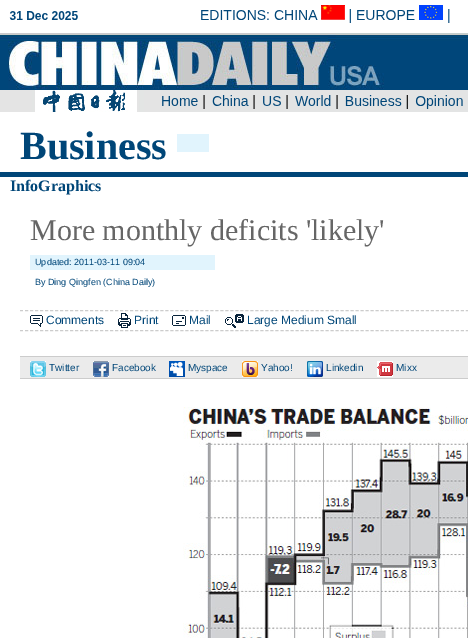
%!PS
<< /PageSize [468 638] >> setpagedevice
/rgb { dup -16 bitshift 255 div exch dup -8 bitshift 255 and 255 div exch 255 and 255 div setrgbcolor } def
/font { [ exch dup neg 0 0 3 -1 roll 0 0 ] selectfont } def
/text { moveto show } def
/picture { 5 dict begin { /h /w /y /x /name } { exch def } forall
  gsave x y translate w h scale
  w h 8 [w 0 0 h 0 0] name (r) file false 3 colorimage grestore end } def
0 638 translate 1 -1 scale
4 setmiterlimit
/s1 { /LiberationSerif-Bold 40 font 16#004678 rgb } def
/s2 { /LiberationSerif-Bold 16 font 16#004678 rgb } def
/s3 { /LiberationSerif-Regular 30 font 16#666666 rgb } def
/s4 { /LiberationSans-Regular 9 font 16#004678 rgb } def
/s5 { /LiberationSans-Regular 12 font 16#004678 rgb } def
/s6 { /LiberationSans-Regular 10 font 16#004678 rgb } def
16#FFFFFF rgb
0 0 468 638 rectfill
(pic1.raw) 0 0 468 112 picture
s1
(Business) 20 159 text
16#E1F4FD rgb
177 134 32 18 rectfill
16#004678 rgb
0 172 468 5 rectfill
s2
(InfoGraphics) 10 191 text
s3
(More monthly deficits 'likely') 30 240 text
16#E1F4FD rgb
30 255 185 15 rectfill
s4
(Updated: 2011-03-11 09:04) 35 265 text
(By Ding Qingfen \(China Daily\)) 35 285 text
16#CCCCCC rgb
[3 2.01] 0 setdash
20 310.5 moveto 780 310.5 lineto stroke
20 330.5 moveto 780 330.5 lineto stroke
(pic2.raw) 30 315 13 12 picture
s5
(Comments) 46 324 text
(pic3.raw) 118 313 13 15 picture
(Print) 134 324 text
(pic4.raw) 172 315 14 11 picture
(Mail) 189 324 text
(pic5.raw) 225 314 19 14 picture
(Large Medium Small) 247 324 text
16#EBEBEB rgb
20 357 448 21 rectfill
16#CCCCCC rgb
20 356 448 1 rectfill
20 378 448 1 rectfill
(pic6.raw) 30 361 16 16 picture
s6
(Twitter) 49 371 text
(pic7.raw) 93 361 16 16 picture
(Facebook) 112 371 text
(pic8.raw) 169 361 16 16 picture
(Myspace) 188 371 text
(pic9.raw) 242 361 16 16 picture
(Yahoo!) 261 371 text
(pic10.raw) 307 361 16 16 picture
(Linkedin) 326 371 text
(pic11.raw) 377 361 16 16 picture
(Mixx) 396 371 text
(pic12.raw) 183 407 285 231 picture
showpage
